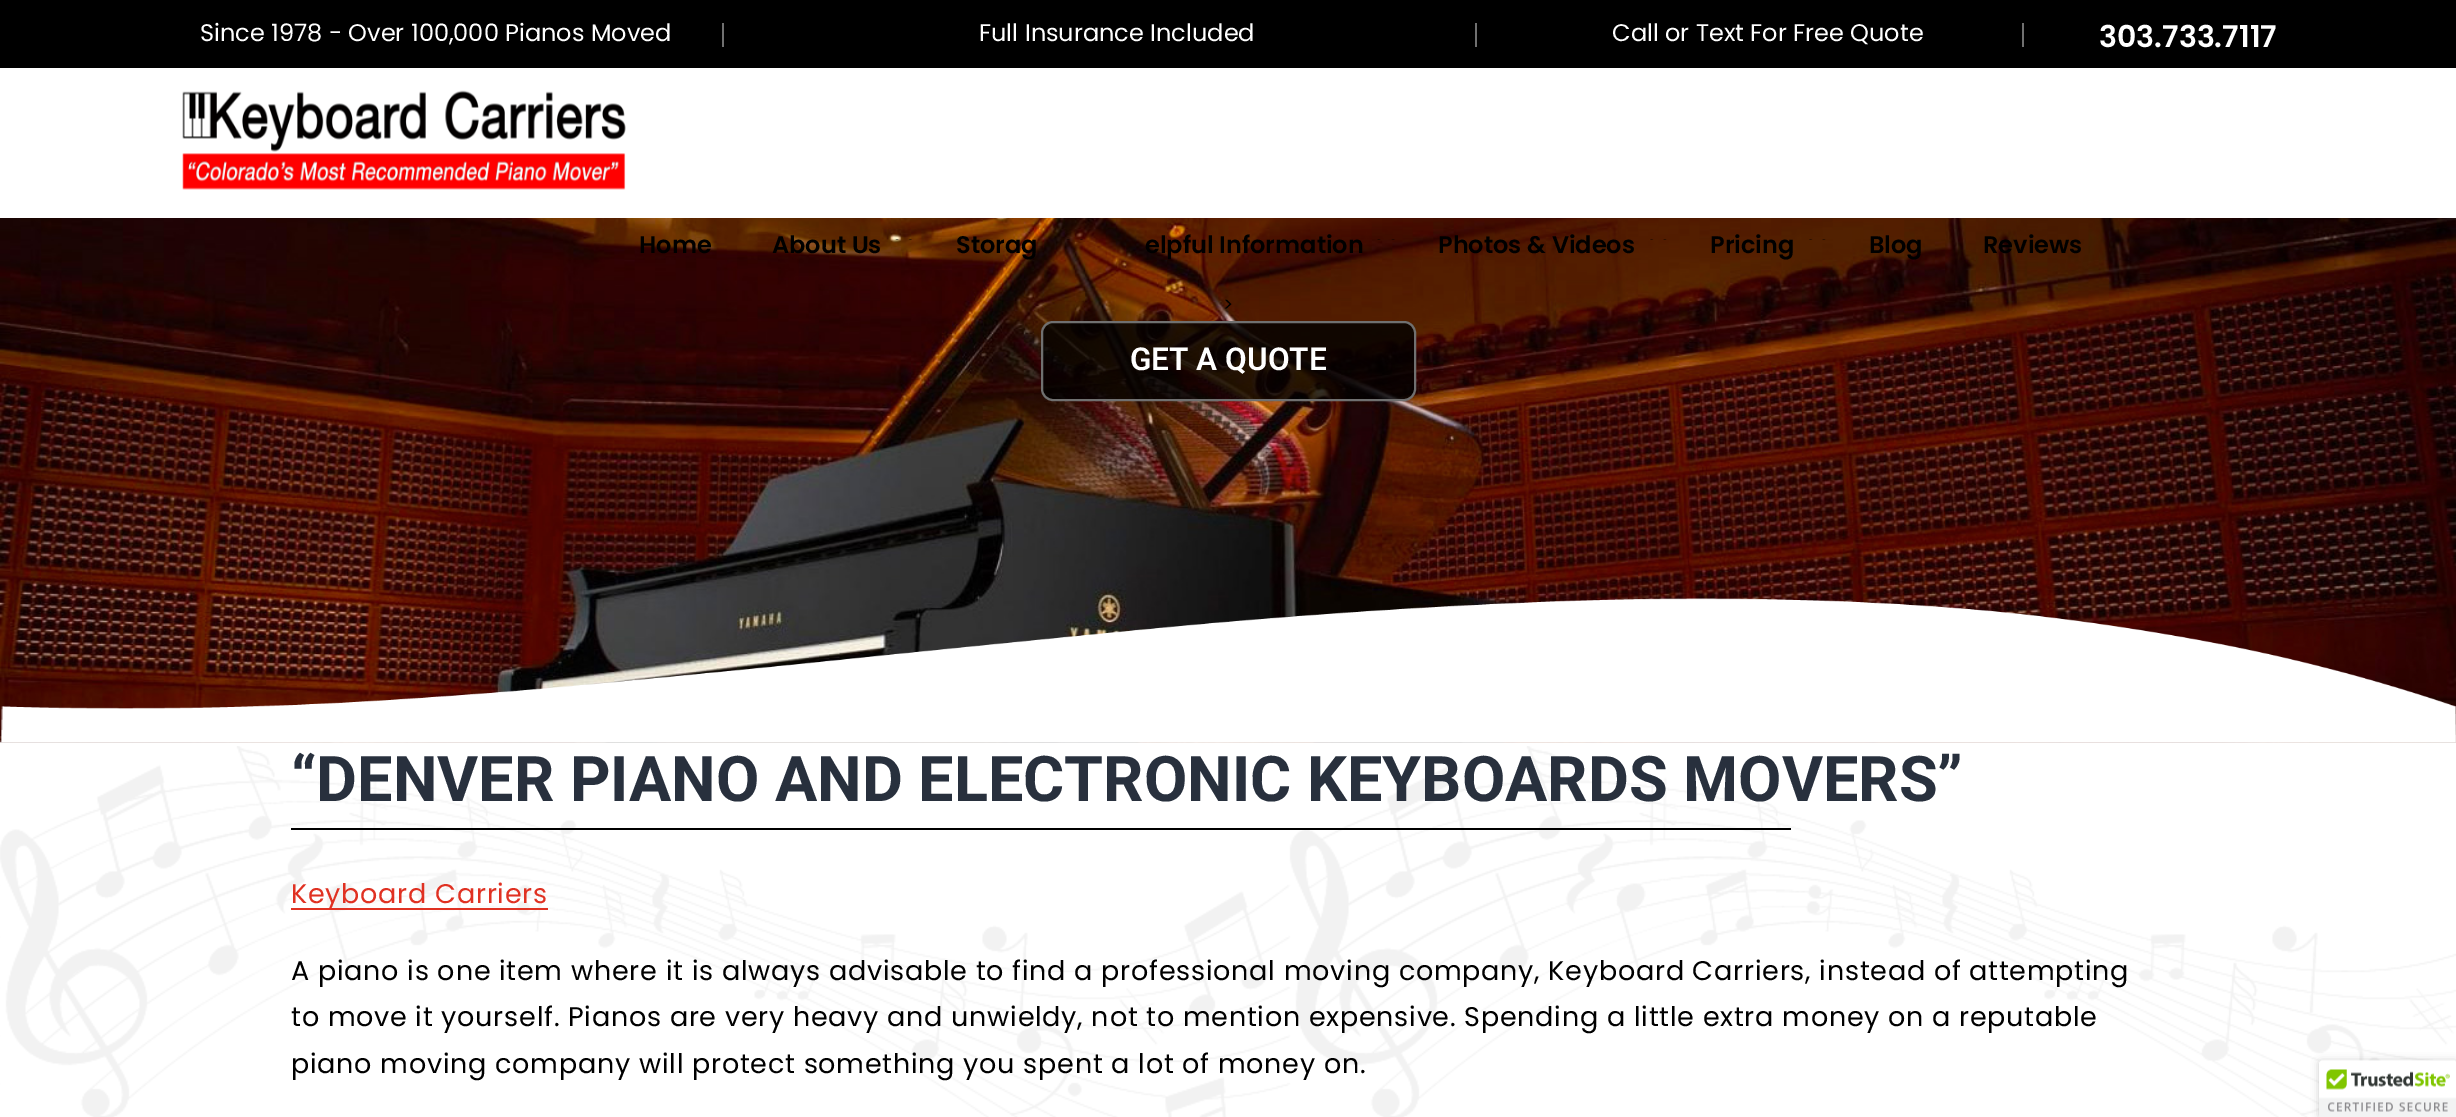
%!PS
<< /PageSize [2456 1117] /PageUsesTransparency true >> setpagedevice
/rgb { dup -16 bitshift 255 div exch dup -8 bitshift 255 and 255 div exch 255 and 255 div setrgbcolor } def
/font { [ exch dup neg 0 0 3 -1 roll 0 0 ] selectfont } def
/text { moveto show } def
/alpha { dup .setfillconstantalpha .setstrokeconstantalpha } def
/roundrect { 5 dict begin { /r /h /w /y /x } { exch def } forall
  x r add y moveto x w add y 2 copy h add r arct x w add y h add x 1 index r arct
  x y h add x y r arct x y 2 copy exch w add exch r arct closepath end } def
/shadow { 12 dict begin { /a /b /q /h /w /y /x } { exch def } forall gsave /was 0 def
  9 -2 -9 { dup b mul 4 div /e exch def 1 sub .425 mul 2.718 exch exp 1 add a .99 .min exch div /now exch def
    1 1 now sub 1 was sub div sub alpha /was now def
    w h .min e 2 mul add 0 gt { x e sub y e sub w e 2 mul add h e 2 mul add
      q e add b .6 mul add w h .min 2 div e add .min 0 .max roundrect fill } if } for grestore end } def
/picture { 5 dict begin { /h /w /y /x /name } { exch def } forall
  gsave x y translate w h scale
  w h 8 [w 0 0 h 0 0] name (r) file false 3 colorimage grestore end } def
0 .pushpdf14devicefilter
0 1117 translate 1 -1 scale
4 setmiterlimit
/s1 { /Poppins-Regular 24 font 16#FFFFFF rgb } def
/s2 { /Poppins-SemiBold 30 font 16#FFFFFF rgb } def
/s3 { /Poppins-SemiBold 24 font 16#000000 rgb } def
/s4 { /Poppins-Regular 19 font 16#000000 rgb } def
/s5 { /Roboto-SemiBold 31.5 font 16#FFFFFF rgb } def
/s6 { /Roboto-Bold 63 font 16#28303D rgb } def
16#FFFFFF rgb
0 0 2456 1117 rectfill
16#000000 rgb
0 0 2456 68 rectfill
16#707070 rgb
722 23 2 24 rectfill
s1
(Since 1978 - Over 100,000 Pianos Moved) 200 41 text
16#707070 rgb
1475 23 2 24 rectfill
s1
(Full Insurance Included) 979 41 text
16#707070 rgb
2022 23 2 24 rectfill
s1
(Call or Text For Free Quote) 1612 41 text
s2
(303.733.7117) 2099 47 text
(pic1.raw) 182 90 444 100 picture
(pic7.raw) 0 218 2456 525 picture
s3
(Home) 639 253 text
(About Us) 772 253 text
(pic2.raw) 895 239 17 1 picture
(Storag) 956 253 text
(pic3.raw) 1066 239 17 1 picture
(elpful Information) 1145 253 text
(pic4.raw) 1377 239 18 1 picture
(Photos & Videos) 1438 253 text
(pic5.raw) 1650 239 17 1 picture
(Pricing) 1710 253 text
(pic6.raw) 1809 239 17 1 picture
(Blog) 1869 253 text
(Reviews) 1983 253 text
s4
(>) 1223 311 text
0.8 alpha
1042 322 373 78 11 roundrect fill
1 alpha
16#707070 rgb
2 setlinewidth
1042 322 373 78 11 roundrect stroke
s5
(GET A QUOTE) 1130 370 text
(pic8.raw) 0 598 2456 145 picture
(pic9.raw) 0 746 2456 371 picture
s6
(“DENVER PIANO AND ELECTRONIC KEYBOARDS MOVERS”) 291 801 text
16#000000 rgb
291 828 1500 2 rectfill
16#E03122 rgb
291 908 257 2 rectfill
/Poppins-Regular 27 font
291 903 moveto 0.75 0 (Keyboard Carriers) ashow
16#000000 rgb
291 980 moveto 0.75 0 (A piano is one item where it is always advisable to find a professional moving company, Keyboard Carriers, instead of attempting) ashow
291 1026 moveto 0.75 0 (to move it yourself. Pianos are very heavy and unwieldy, not to mention expensive. Spending a little extra money on a reputable) ashow
291 1073 moveto 0.75 0 (piano moving company will protect something you spent a lot of money on.) ashow
2319 1061 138 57 3 4 0.2 shadow
(pic10.raw) 2319 1060 137 57 picture
.poppdf14devicefilter showpage
